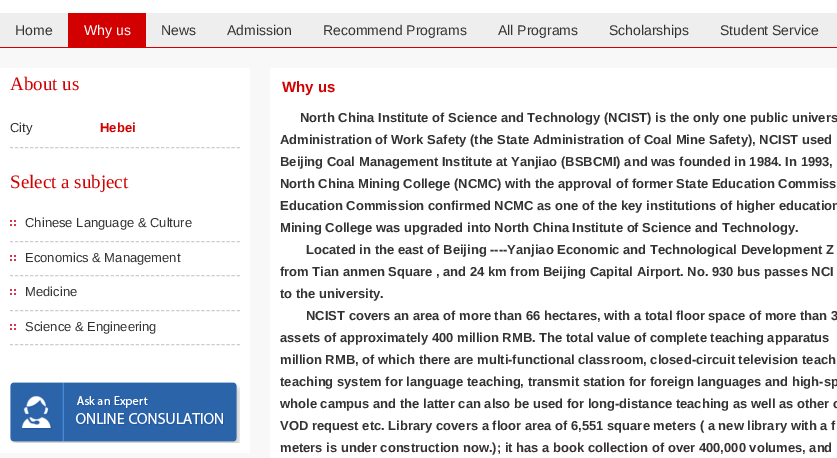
%!PS
<< /PageSize [837 458] >> setpagedevice
/rgb { dup -16 bitshift 255 div exch dup -8 bitshift 255 and 255 div exch 255 and 255 div setrgbcolor } def
/font { [ exch dup neg 0 0 3 -1 roll 0 0 ] selectfont } def
/text { moveto show } def
/picture { 5 dict begin { /h /w /y /x /name } { exch def } forall
  gsave x y translate w h scale
  w h 8 [w 0 0 h 0 0] name (r) file false 3 colorimage grestore end } def
0 458 translate 1 -1 scale
4 setmiterlimit
/s1 { /LiberationSans-Regular 14 font 16#333333 rgb } def
/s2 { /LiberationSans-Regular 14 font 16#FFFFFF rgb } def
/s3 { /LiberationSerif-Regular 19 font 16#D20000 rgb } def
/s4 { /LiberationSans-Regular 13 font 16#333333 rgb } def
/s5 { /LiberationSans-Bold 13 font 16#D20000 rgb } def
/s6 { /LiberationSans-Bold 15 font 16#D20000 rgb } def
/s7 { /LiberationSans-Bold 13 font 16#333333 rgb } def
16#F8F8F8 rgb
0 0 837 458 rectfill
16#FFFFFF rgb
0 0 837 13 rectfill
16#D20000 rgb
0 47 837 1 rectfill
16#EEEEEE rgb
0 13 837 34 rectfill
s1
(Home) 15 35 text
16#D20000 rgb
68 13 78 34 rectfill
s2
(Why us) 84 35 text
s1
(News) 161 35 text
(Admission) 227 35 text
(Recommend Programs) 323 35 text
(All Programs) 498 35 text
(Scholarships) 609 35 text
(Student Service) 720 35 text
16#FFFFFF rgb
0 68 250 385 rectfill
s3
(About us) 10 90 text
16#CCCCCC rgb
[3 2.04] 0 setdash
10 147.5 moveto 240 147.5 lineto stroke
s4
(City) 10 132 text
s5
(Hebei) 100 132 text
s3
(Select a subject) 10 188 text
(pic1.raw) 10 220 6 6 picture
16#CCCCCC rgb
10 241.5 moveto 240 241.5 lineto stroke
s4
(Chinese Language & Culture) 25 227 text
(pic1.raw) 10 255 6 6 picture
16#CCCCCC rgb
10 275.5 moveto 240 275.5 lineto stroke
s4
(Economics & Management) 25 262 text
(pic1.raw) 10 289 6 6 picture
16#CCCCCC rgb
10 310.5 moveto 240 310.5 lineto stroke
s4
(Medicine) 25 296 text
(pic1.raw) 10 324 6 6 picture
16#CCCCCC rgb
10 344.5 moveto 240 344.5 lineto stroke
s4
(Science & Engineering) 25 331 text
(pic2.raw) 10 382 230 61 picture
16#FFFFFF rgb
270 68 567 390 rectfill
s6
(Why us) 282 92 text
s7
(North China Institute of Science and Technology \(NCIST\) is the only one public univers) 300 122 text
(Administration of Work Safety \(the State Administration of Coal Mine Safety\), NCIST used) 280 144 text
(Beijing Coal Management Institute at Yanjiao \(BSBCMI\) and was founded in 1984. In 1993,) 280 166 text
(North China Mining College \(NCMC\) with the approval of former State Education Commiss) 280 188 text
(Education Commission confirmed NCMC as one of the key institutions of higher education) 280 210 text
(Mining College was upgraded into North China Institute of Science and Technology.) 280 232 text
(Located in the east of Beijing ----Yanjiao Economic and Technological Development Z) 306 254 text
(from Tian anmen Square , and 24 km from Beijing Capital Airport. No. 930 bus passes NCI) 280 276 text
(to the university.) 280 298 text
(NCIST covers an area of more than 66 hectares, with a total floor space of more than 3) 306 320 text
(assets of approximately 400 million RMB. The total value of complete teaching apparatus) 280 342 text
(million RMB, of which there are multi-functional classroom, closed-circuit television teach) 280 364 text
(teaching system for language teaching, transmit station for foreign languages and high-sp) 280 386 text
(whole campus and the latter can also be used for long-distance teaching as well as other c) 280 408 text
(VOD request etc. Library covers a floor area of 6,551 square meters \( a new library with a f) 280 430 text
(meters is under construction now.\); it has a book collection of over 400,000 volumes, and) 280 452 text
showpage
